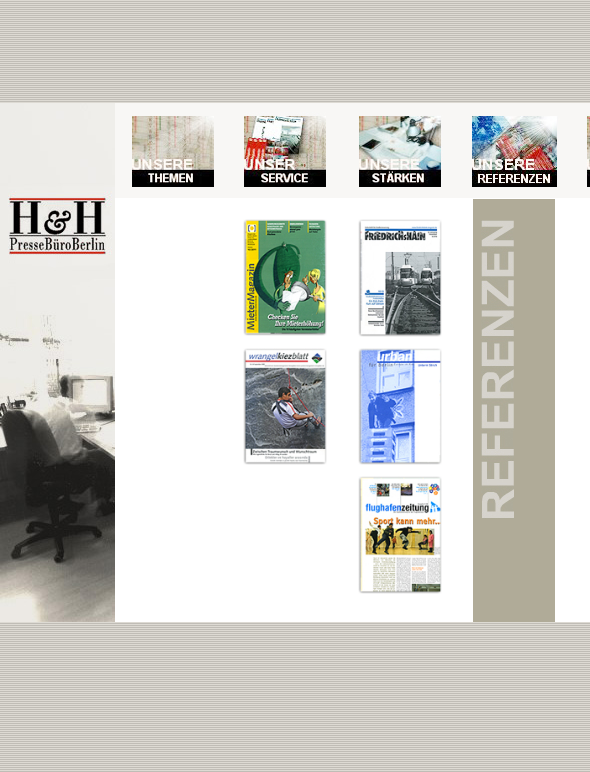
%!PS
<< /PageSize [590 772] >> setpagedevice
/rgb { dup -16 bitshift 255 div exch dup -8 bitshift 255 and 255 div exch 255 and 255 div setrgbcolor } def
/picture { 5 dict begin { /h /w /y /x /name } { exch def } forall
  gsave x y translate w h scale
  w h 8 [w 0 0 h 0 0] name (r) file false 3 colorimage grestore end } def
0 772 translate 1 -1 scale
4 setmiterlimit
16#FFFFFF rgb
0 0 590 772 rectfill
(pic1.raw) 0 0 590 772 picture
(pic2.raw) 0 103 115 519 picture
115 198 475 424 rectfill
16#F8F7F5 rgb
115 103 475 95 rectfill
(pic3.raw) 132 116 82 71 picture
(pic4.raw) 244 112 82 75 picture
(pic5.raw) 359 115 84 72 picture
(pic6.raw) 472 116 88 71 picture
(pic7.raw) 586 116 4 71 picture
(pic8.raw) 243 219 84 117 picture
(pic9.raw) 358 219 84 118 picture
(pic10.raw) 243 348 84 117 picture
(pic11.raw) 358 348 84 117 picture
(pic12.raw) 358 476 84 118 picture
16#B0AB98 rgb
473 199 82 423 rectfill
(pic13.raw) 481 220 33 299 picture
showpage
